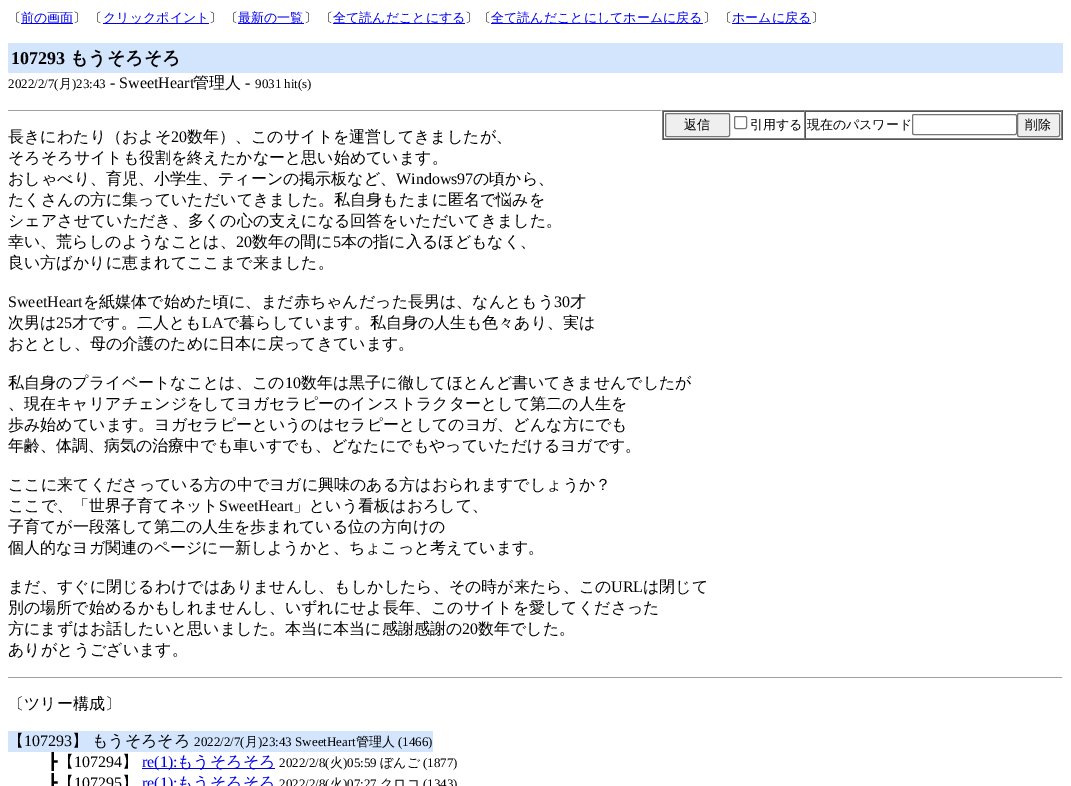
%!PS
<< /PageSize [1071 786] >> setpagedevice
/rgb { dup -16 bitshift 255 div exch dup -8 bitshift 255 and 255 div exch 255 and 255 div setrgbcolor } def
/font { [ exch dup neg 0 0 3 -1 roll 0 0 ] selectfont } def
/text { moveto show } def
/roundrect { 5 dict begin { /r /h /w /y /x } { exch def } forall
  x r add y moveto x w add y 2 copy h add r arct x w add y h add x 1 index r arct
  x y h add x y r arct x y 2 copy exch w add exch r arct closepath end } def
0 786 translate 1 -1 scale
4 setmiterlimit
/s1 { /WenQuanYiZenHei-Medium 13 font 16#000000 rgb } def
/s2 { /WenQuanYiZenHei-Medium 13 font 16#0000EE rgb } def
/s3 { /LiberationSerif-Bold 18 font 16#000000 rgb } def
/s4 { /WenQuanYiZenHei-Bold 18 font 16#000000 rgb } def
/s5 { /LiberationSerif-Regular 13 font 16#000000 rgb } def
/s6 { /LiberationSerif-Regular 16 font 16#000000 rgb } def
/s7 { /WenQuanYiZenHei-Medium 16 font 16#000000 rgb } def
/s8 { /DejaVuSans-Regular 16 font 16#000000 rgb } def
/s9 { /LiberationSerif-Regular 16 font 16#0000EE rgb } def
/s10 { /WenQuanYiZenHei-Medium 16 font 16#0000EE rgb } def
16#FFFFFF rgb
0 0 1071 786 rectfill
s1
(〔) 8 22 text
16#0000EE rgb
21 23 52 1 rectfill
(前の画面) 21 22 text
16#000000 rgb
73 22 moveto -1 0 32 (〕 〔) widthshow
16#0000EE rgb
103 23 106 1 rectfill
(クリックポイント) 103 22 text
16#000000 rgb
209 22 moveto -1 0 32 (〕 〔) widthshow
16#0000EE rgb
238 23 66 1 rectfill
(最新の一覧) 238 22 text
16#000000 rgb
304 22 moveto -1 0 32 (〕 〔) widthshow
16#0000EE rgb
333 23 132 1 rectfill
(全て読んだことにする) 333 22 text
s1
(〕〔) 465 22 text
16#0000EE rgb
491 23 212 1 rectfill
(全て読んだことにしてホームに戻る) 491 22 text
16#000000 rgb
703 22 moveto -1 0 32 (〕 〔) widthshow
16#0000EE rgb
732 23 79 1 rectfill
(ホームに戻る) 732 22 text
s1
(〕) 811 22 text
16#D2E5FD rgb
8 43 1055 30 rectfill
s3
(107293) 11 64 text
s4
(もうそろそろ) 70 64 text
s5
(2022/2/7\() 8 88 text
s1
(月) 59 88 text
s5
(\)23:43) 72 88 text
s6
(- SweetHeart) 110 88 text
s7
(管理人) 193 88 text
s6
(-) 245 88 text
s5
(9031 hit\(s\)) 255 88 text
16#9F9F9F rgb
8 110 654 1 rectfill
16#EEEEEE rgb
661 110 1 1 rectfill
16#808080 rgb
662 110 401 1 rectfill
16#555555 rgb
1062 110 1 30 rectfill
662 139 401 1 rectfill
16#808080 rgb
662 110 1 30 rectfill
16#555555 rgb
663 111 399 1 rectfill
16#808080 rgb
804 111 1 28 rectfill
663 138 142 1 rectfill
16#555555 rgb
663 111 1 28 rectfill
16#EFEFEF rgb
665.5 113.5 64 23 1.5 roundrect gsave fill grestore
16#767676 rgb
stroke
s1
(返信) 684 129 text
16#767676 rgb
734.5 116.5 12 12 1.5 roundrect stroke
16#808080 rgb
1061 111 1 28 rectfill
805 138 257 1 rectfill
16#555555 rgb
805 111 1 28 rectfill
s1
(引用する 現在のパスワード) 750 129 text
16#767676 rgb
912.5 114.5 104 20 1.5 roundrect stroke
16#EFEFEF rgb
1017.5 113.5 42 23 1.5 roundrect gsave fill grestore
16#767676 rgb
stroke
s1
(削除) 1025 129 text
s7
(長きにわたり（およそ) 8 142 text
s6
(20) 171 142 text
s7
(数年）、このサイトを運営してきましたが、) 187 142 text
(そろそろサイトも役割を終えたかなーと思い始めています。) 8 163 text
(おしゃべり、育児、小学生、ティーンの掲示板など、) 8 184 text
s6
(Windows97) 396 184 text
s7
(の頃から、) 473 184 text
(たくさんの方に集っていただいてきました。私自身もたまに匿名で悩みを) 8 205 text
(シェアさせていただき、多くの心の支えになる回答をいただいてきました。) 8 226 text
(幸い、荒らしのようなことは、) 8 247 text
s6
(20) 236 247 text
s7
(数年の間に) 252 247 text
s6
(5) 333 247 text
s7
(本の指に入るほどもなく、) 341 247 text
(良い方ばかりに恵まれてここまで来ました。) 8 268 text
s6
(SweetHeart) 8 307 text
s7
(を紙媒体で始めた頃に、まだ赤ちゃんだった長男は、なんともう) 83 307 text
s6
(30) 554 307 text
s7
(才) 570 307 text
(次男は) 8 328 text
s6
(25) 56 328 text
s7
(才です。二人とも) 72 328 text
s6
(LA) 202 328 text
s7
(で暮らしています。私自身の人生も色々あり、実は) 223 328 text
(おととし、母の介護のために日本に戻ってきています。) 8 349 text
(私自身のプライベートなことは、この) 8 388 text
s6
(10) 285 388 text
s7
(数年は黒子に徹してほとんど書いてきませんでしたが) 301 388 text
(、現在キャリアチェンジをしてヨガセラピーのインストラクターとして第二の人生を) 8 409 text
(歩み始めています。ヨガセラピーというのはセラピーとしてのヨガ、どんな方にでも) 8 430 text
(年齢、体調、病気の治療中でも車いすでも、どなたにでもやっていただけるヨガです。) 8 451 text
(ここに来てくださっている方の中でヨガに興味のある方はおられますでしょうか？) 8 490 text
(ここで、「世界子育てネット) 8 511 text
s6
(SweetHeart) 219 511 text
s7
(」という看板はおろして、) 293 511 text
(子育てが一段落して第二の人生を歩まれている位の方向けの) 8 532 text
(個人的なヨガ関連のページに一新しようかと、ちょこっと考えています。) 8 553 text
(まだ、すぐに閉じるわけではありませんし、もしかしたら、その時が来たら、この) 8 592 text
s6
(URL) 611 592 text
s7
(は閉じて) 643 592 text
(別の場所で始めるかもしれませんし、いずれにせよ長年、このサイトを愛してくださった) 8 613 text
(方にまずはお話したいと思いました。本当に本当に感謝感謝の) 8 634 text
s6
(20) 462 634 text
s7
(数年でした。) 478 634 text
(ありがとうございます。) 8 655 text
16#9F9F9F rgb
8 677 1055 1 rectfill
16#EEEEEE rgb
1062 677 1 1 rectfill
s7
(〔ツリー構成〕) 8 709 text
16#D2E5FD rgb
8 731 425 21 rectfill
s7
(【) 8 746 text
s6
(107293) 24 746 text
/WenQuanYiZenHei-Medium 16 font
72 746 moveto -1 0 32 (】 もうそろそろ) widthshow
s5
(2022/2/7\() 194 746 text
s1
(月) 245 746 text
s5
(\)23:43 SweetHeart) 258 746 text
s1
(管理人) 356 746 text
s5
(\(1466\)) 398 746 text
s8
(┣) 48 767 text
s7
(【) 58 767 text
s6
(107294) 74 767 text
s7
(】) 122 767 text
16#0000EE rgb
142 768 133 1 rectfill
s9
(re\(1\):) 142 767 text
s10
(もうそろそろ) 177 767 text
s5
(2022/2/8\() 279 767 text
s1
(火) 330 767 text
s5
(\)05:59) 343 767 text
s1
(ぼんご) 380 767 text
s5
(\(1877\)) 423 767 text
s8
(┣) 48 788 text
s7
(【) 58 788 text
s6
(107295) 74 788 text
s7
(】) 122 788 text
s9
(re\(1\):) 142 788 text
s10
(もうそろそろ) 177 788 text
s5
(2022/2/8\() 279 788 text
s1
(火) 330 788 text
s5
(\)07:27) 343 788 text
s1
(クロコ) 380 788 text
s5
(\(1343\)) 423 788 text
showpage
